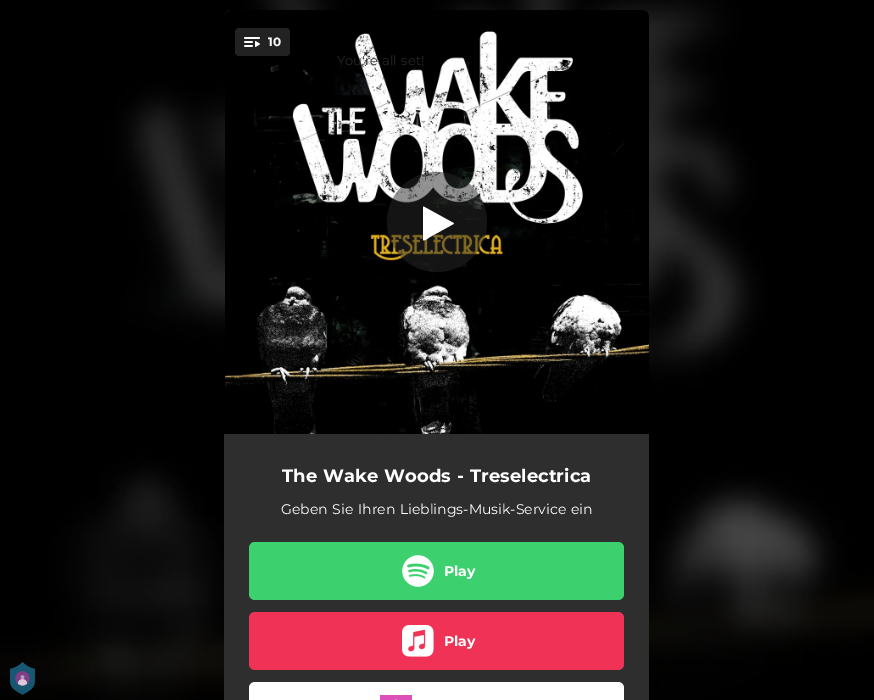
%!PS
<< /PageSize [874 700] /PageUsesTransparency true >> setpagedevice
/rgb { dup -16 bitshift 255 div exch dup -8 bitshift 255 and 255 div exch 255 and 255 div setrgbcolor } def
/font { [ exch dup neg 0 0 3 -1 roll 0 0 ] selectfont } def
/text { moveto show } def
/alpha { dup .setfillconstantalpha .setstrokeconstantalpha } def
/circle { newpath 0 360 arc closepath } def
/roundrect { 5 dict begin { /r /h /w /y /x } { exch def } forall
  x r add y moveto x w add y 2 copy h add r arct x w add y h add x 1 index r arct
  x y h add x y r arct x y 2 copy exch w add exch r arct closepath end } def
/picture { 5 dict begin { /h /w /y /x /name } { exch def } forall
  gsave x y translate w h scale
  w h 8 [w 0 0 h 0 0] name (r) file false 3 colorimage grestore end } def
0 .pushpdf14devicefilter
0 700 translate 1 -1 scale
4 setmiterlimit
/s1 { /Montserrat-Bold 12 font 16#FFFFFF rgb } def
/s2 { /Montserrat-Bold 14 font 16#FFFFFF rgb } def
16#FFFFFF rgb
0 0 874 700 rectfill
(pic1.raw) 0 0 874 700 picture
(pic2.raw) 225 10 424 424 picture
16#222222 rgb
235 28 55 28 4 roundrect fill
(pic3.raw) 244 37 16 10 picture
s1
(10) 268 46 text
0.5 alpha
16#282828 rgb
437 222 50 circle fill
1 alpha
16#FFFFFF rgb
453.5 224 moveto 429 237.5 lineto 428.5 238 424 241.5 423 240 curveto 423 207 lineto 423.5 206.5 lineto 453.5 223 lineto 454 223.5 lineto 453.5 224 lineto fill
/Montserrat-Regular 13 font
16#272727 rgb
337 65 moveto 1 0 32 (You're all set!) widthshow
16#2E2E2E rgb
224 434 425 266 rectfill
/Montserrat-Bold 18 font
16#FFFFFF rgb
282 482 moveto 1 0 32 (The Wake Woods - Treselectrica) widthshow
/Montserrat-Regular 14 font
281 514 moveto 1 0 32 (Geben Sie Ihren Lieblings-Musik-Service ein) widthshow
16#3CD16E rgb
249 542 375 58 6 roundrect fill
(pic4.raw) 402 555 32 32 picture
s2
(Play) 444 576 text
16#EF3256 rgb
249 612 375 58 6 roundrect fill
(pic5.raw) 402 625 32 32 picture
s2
(Play) 444 646 text
249 682 375 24 6 roundrect fill
(pic6.raw) 380 695 32 5 picture
(pic7.raw) 10 662 25 33 picture
.poppdf14devicefilter showpage
